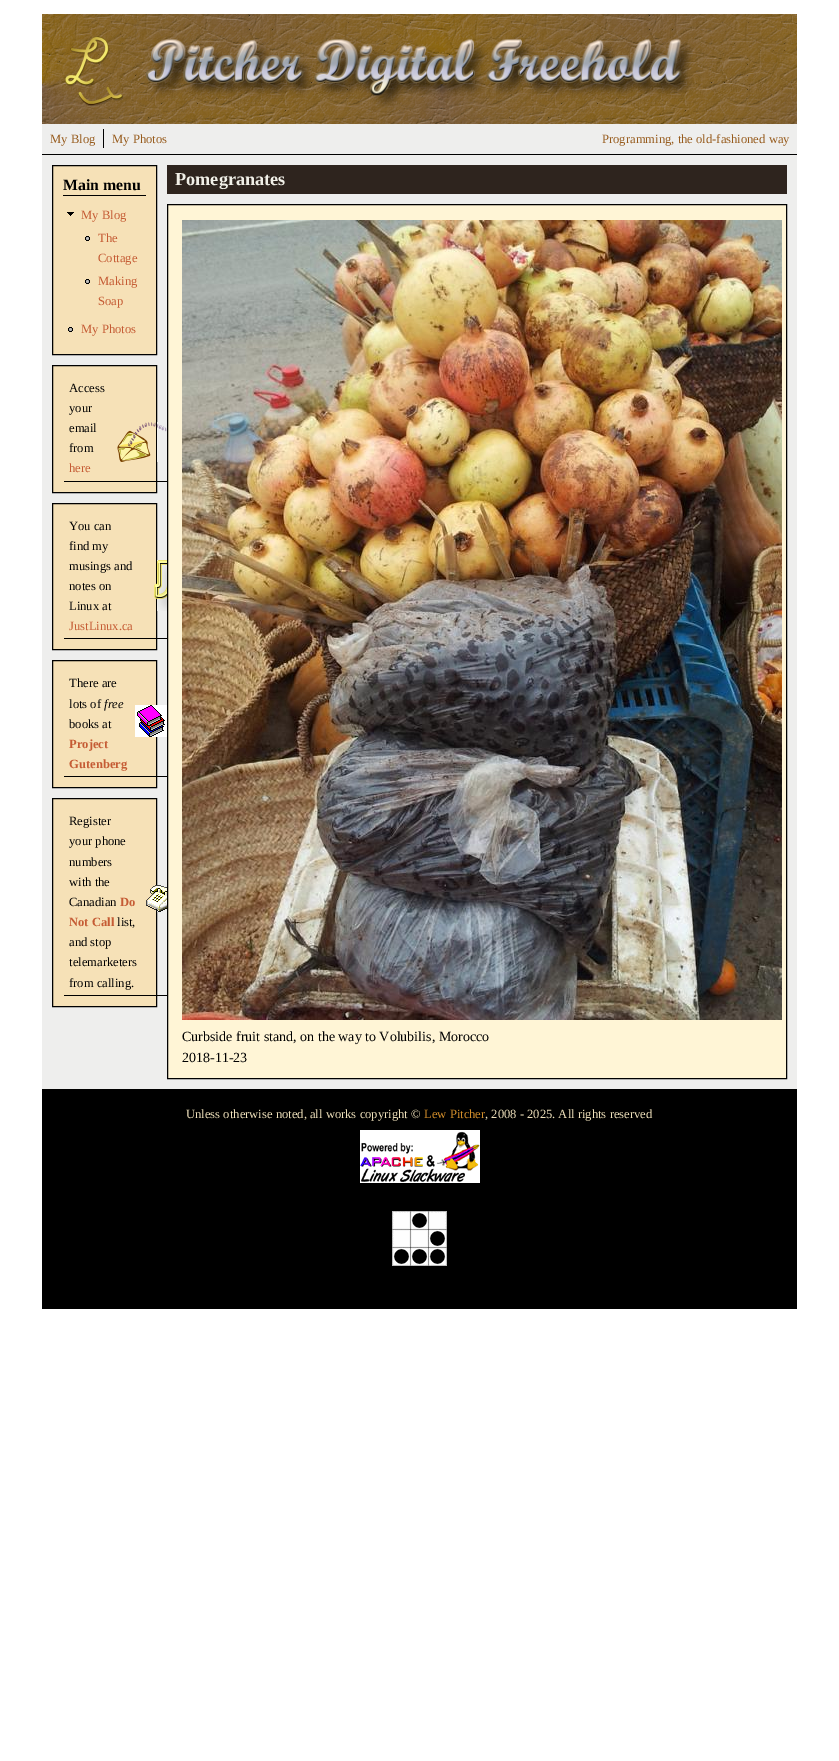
%!PS
<< /PageSize [839 1761] >> setpagedevice
/rgb { dup -16 bitshift 255 div exch dup -8 bitshift 255 and 255 div exch 255 and 255 div setrgbcolor } def
/font { [ exch dup neg 0 0 3 -1 roll 0 0 ] selectfont } def
/text { moveto show } def
/picture { 5 dict begin { /h /w /y /x /name } { exch def } forall
  gsave x y translate w h scale
  w h 8 [w 0 0 h 0 0] name (r) file false 3 colorimage grestore end } def
0 1761 translate 1 -1 scale
4 setmiterlimit
/s1 { /LiberationSerif-Regular 12.6 font 16#975B1C rgb } def
/s2 { /LiberationSerif-Bold 15.75 font 16#000000 rgb } def
/s3 { /LiberationSerif-Regular 12.6 font 16#C55B34 rgb } def
/s4 { /LiberationSerif-Regular 12.6 font 16#000000 rgb } def
/s5 { /LiberationSerif-Italic 12.6 font 16#000000 rgb } def
/s6 { /LiberationSerif-Bold 12.6 font 16#C55B34 rgb } def
/s7 { /LiberationSerif-Bold 18.25 font 16#F1F0E8 rgb } def
/s8 { /LiberationSerif-Regular 14 font 16#000000 rgb } def
/s9 { /LiberationSerif-Regular 12.6 font 16#F0E2BC rgb } def
/s10 { /LiberationSerif-Regular 12.6 font 16#D48F2B rgb } def
16#FFFFFF rgb
0 0 839 1761 rectfill
16#EEEEED rgb
42 124 755 965 rectfill
(pic1.raw) 42 14 755 110 picture
(pic2.raw) 65 36 628 72 picture
16#000000 rgb
42 154 755 1 rectfill
s1
(My Blog) 50 143 text
16#000000 rgb
103 129 1 19 rectfill
s1
(My Photos) 112 143 text
(Programming, the old-fashioned way) 602 143 text
16#F6E1B7 rgb
52.5 165.5 moveto 156.5 165.5 lineto 156.5 354.5 lineto 52.5 354.5 lineto closepath gsave fill grestore
16#000000 rgb
stroke
63 195 83 1 rectfill
s2
(Main menu) 63 190 text
(pic3.raw) 67 212 7 4 picture
s3
(My Blog) 81 219 text
(pic4.raw) 85 236 5 5 picture
(The) 98 242 text
(Cottage) 98 262 text
(pic4.raw) 85 279 5 5 picture
(Making) 98 285 text
(Soap) 98 305 text
(pic4.raw) 68 327 5 5 picture
(My Photos) 81 333 text
16#F6E1B7 rgb
52.5 365.5 moveto 156.5 365.5 lineto 156.5 492.5 lineto 52.5 492.5 lineto closepath gsave fill grestore
16#000000 rgb
stroke
(Access) 69 392 text
(your) 69 412 text
(email) 69 432 text
(from) 69 452 text
s3
(here) 69 472 text
16#000000 rgb
64 481 103 1 rectfill
(pic5.raw) 117 422 50 40 picture
16#F6E1B7 rgb
52.5 503.5 moveto 156.5 503.5 lineto 156.5 649.5 lineto 52.5 649.5 lineto closepath gsave fill grestore
16#000000 rgb
stroke
(You can) 69 530 text
(find my) 69 550 text
(musings and) 69 570 text
(notes on) 69 590 text
(Linux at) 69 610 text
s3
(JustLinux.ca) 69 630 text
16#000000 rgb
64 638 103 1 rectfill
(pic6.raw) 154 560 13 51 picture
16#F6E1B7 rgb
52.5 660.5 moveto 156.5 660.5 lineto 156.5 787.5 lineto 52.5 787.5 lineto closepath gsave fill grestore
16#000000 rgb
stroke
(There are) 69 687 text
(lots of) 69 708 text
s5
(free) 104 708 text
s4
(books at) 69 728 text
s6
(Project) 69 748 text
(Gutenberg) 69 768 text
16#000000 rgb
64 776 108 1 rectfill
(pic7.raw) 135 705 32 32 picture
16#F6E1B7 rgb
52.5 798.5 moveto 156.5 798.5 lineto 156.5 1006.5 lineto 52.5 1006.5 lineto closepath gsave fill grestore
16#000000 rgb
stroke
s4
(Register) 69 825 text
(your phone) 69 845 text
(numbers) 69 866 text
(with the) 69 886 text
(Canadian) 69 906 text
s6
(Do) 120 906 text
(Not Call) 69 926 text
s4
(list,) 117 926 text
(and stop) 69 946 text
(telemarketers) 69 966 text
(from calling.) 69 987 text
64 995 103 1 rectfill
(pic8.raw) 146 885 21 27 picture
16#2E241E rgb
167 165 620 29 rectfill
s7
(Pomegranates) 175 185 text
16#FFF5D6 rgb
167.5 204.5 moveto 786.5 204.5 lineto 786.5 1078.5 lineto 167.5 1078.5 lineto closepath gsave fill grestore
16#000000 rgb
stroke
(pic9.raw) 182 220 600 800 picture
s8
(Curbside fruit stand, on the way to Volubilis, Morocco) 182 1041 text
(2018-11-23) 182 1062 text
42 1089 755 220 rectfill
s9
(Unless otherwise noted, all works copyright ©) 186 1118 text
s10
(Lew Pitcher) 424 1118 text
s9
(, 2008 - 2025. All rights reserved) 485 1118 text
(pic10.raw) 360 1130 120 53 picture
(pic11.raw) 392 1211 55 55 picture
showpage
